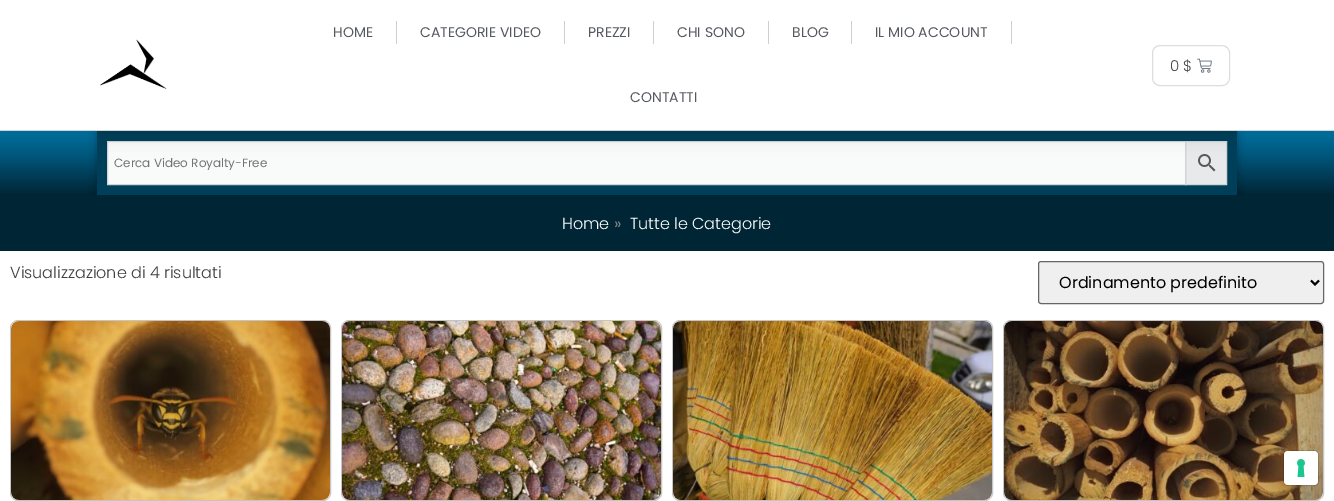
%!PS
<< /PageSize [1334 501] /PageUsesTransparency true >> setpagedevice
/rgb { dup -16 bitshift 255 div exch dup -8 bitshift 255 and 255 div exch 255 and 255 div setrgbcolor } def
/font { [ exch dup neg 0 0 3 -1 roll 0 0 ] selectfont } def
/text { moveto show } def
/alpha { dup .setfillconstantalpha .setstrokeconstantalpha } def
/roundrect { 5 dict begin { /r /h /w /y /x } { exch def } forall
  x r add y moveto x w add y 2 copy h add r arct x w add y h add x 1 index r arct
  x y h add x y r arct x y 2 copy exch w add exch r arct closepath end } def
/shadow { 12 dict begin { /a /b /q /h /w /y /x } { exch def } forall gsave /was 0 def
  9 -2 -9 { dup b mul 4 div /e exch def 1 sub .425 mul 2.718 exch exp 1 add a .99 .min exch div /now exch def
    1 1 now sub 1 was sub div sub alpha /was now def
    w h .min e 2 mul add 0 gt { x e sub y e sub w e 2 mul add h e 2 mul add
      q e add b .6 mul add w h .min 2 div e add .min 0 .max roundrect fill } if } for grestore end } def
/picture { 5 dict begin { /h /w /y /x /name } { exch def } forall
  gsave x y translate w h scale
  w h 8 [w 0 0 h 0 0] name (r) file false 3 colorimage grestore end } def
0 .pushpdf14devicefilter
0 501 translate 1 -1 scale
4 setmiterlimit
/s1 { /Poppins-Regular 14 font 16#54595F rgb } def
/s2 { /Poppins-Light 15 font 16#494949 rgb } def
/s3 { /Poppins-Regular 12 font 16#727474 rgb } def
/s4 { /Poppins-Light 16 font 16#FFFFFF rgb } def
/s5 { /Poppins-Regular 16 font 16#868686 rgb } def
/s6 { /Poppins-Light 16 font 16#3F3F3F rgb } def
/s7 { /Poppins-Regular 16 font 16#000000 rgb } def
16#FFFFFF rgb
0 0 1334 501 rectfill
gsave 0 131 moveto 1334 131 lineto 1334 195 lineto 0 195 lineto closepath clip newpath
<< /ShadingType 2 /ColorSpace /DeviceRGB /Coords [667 131 667 195] /Extend [true true] /Function << /FunctionType 2 /Domain [0 1] /C0 [0 0.459 0.655] /C1 [0 0.145 0.208] /N 1 >> >> shfill grestore
16#000000 rgb
99 133 1136 60 0 5 0.5 shadow
16#003F5A rgb
97 131 1140 64 rectfill
16#E7E9EA rgb
1185.5 141.5 moveto 1226.5 141.5 lineto 1226.5 184.5 lineto 1185.5 184.5 lineto closepath gsave fill grestore
16#D3D4D5 rgb
stroke
16#F9FBFB rgb
107.5 141.5 moveto 1185.5 141.5 lineto 1185.5 184.5 lineto 107.5 184.5 lineto closepath gsave fill grestore
16#D3D4D5 rgb
stroke
(pic3.raw) 1198 154 18 18 picture
16#000000 rgb
0 0 1334 131 0 12 0.15 shadow
16#FFFFFF rgb
0 0 1334 130 rectfill
16#D3D3D3 rgb
0 130 1334 1 rectfill
(pic1.raw) 100 39 67 50 picture
s1
(HOME) 333 37 text
16#CFCFCF rgb
396 21 1 23 rectfill
s1
(CATEGORIE VIDEO) 420 37 text
16#CFCFCF rgb
564 21 1 23 rectfill
s1
(PREZZI) 588 37 text
16#CFCFCF rgb
653 21 1 23 rectfill
s1
(CHI SONO) 677 37 text
16#CFCFCF rgb
768 21 1 23 rectfill
s1
(BLOG) 792 37 text
16#CFCFCF rgb
851 21 1 23 rectfill
s1
(IL MIO ACCOUNT) 875 37 text
16#CFCFCF rgb
1011 21 1 23 rectfill
s1
(CONTATTI) 630 102 text
16#DDDDDD rgb
1152.5 45.5 77 40 7.5 roundrect stroke
s2
(0 $) 1170 71 text
(pic2.raw) 1197 58 15 15 picture
s3
(Cerca Video Royalty-Free) 114 167 text
16#002535 rgb
0 195 1334 56 rectfill
s4
(Home) 562 229 text
s5
(») 614 229 text
s4
(Tutte le Categorie) 630 229 text
s6
(Visualizzazione di 4 risultati) 10 278 text
16#EFEFEF rgb
1038.5 261.5 285 42 2.5 roundrect gsave fill grestore
16#666666 rgb
stroke
16#000000 rgb
2 setlinewidth
1311 280.5 moveto 1315 284.5 lineto 1319 280.5 lineto stroke
s7
(Ordinamento predefinito) 1059 288 text
16#C5C5C5 rgb
1 setlinewidth
10.5 320.5 320 180 7.5 roundrect stroke
(pic4.raw) 11 321 319 179 picture
341.5 320.5 320 180 7.5 roundrect stroke
(pic5.raw) 342 321 319 179 picture
672.5 320.5 320 180 7.5 roundrect stroke
(pic6.raw) 673 321 319 179 picture
1003.5 320.5 320 180 7.5 roundrect stroke
(pic7.raw) 1004 321 319 179 picture
0.15 alpha
16#000000 rgb
1283.5 450.5 35 35 4.5 roundrect stroke
1 alpha
16#FFFFFF rgb
1284 451 34 34 4 roundrect fill
(pic8.raw) 1297 459 8 18 picture
.poppdf14devicefilter showpage
